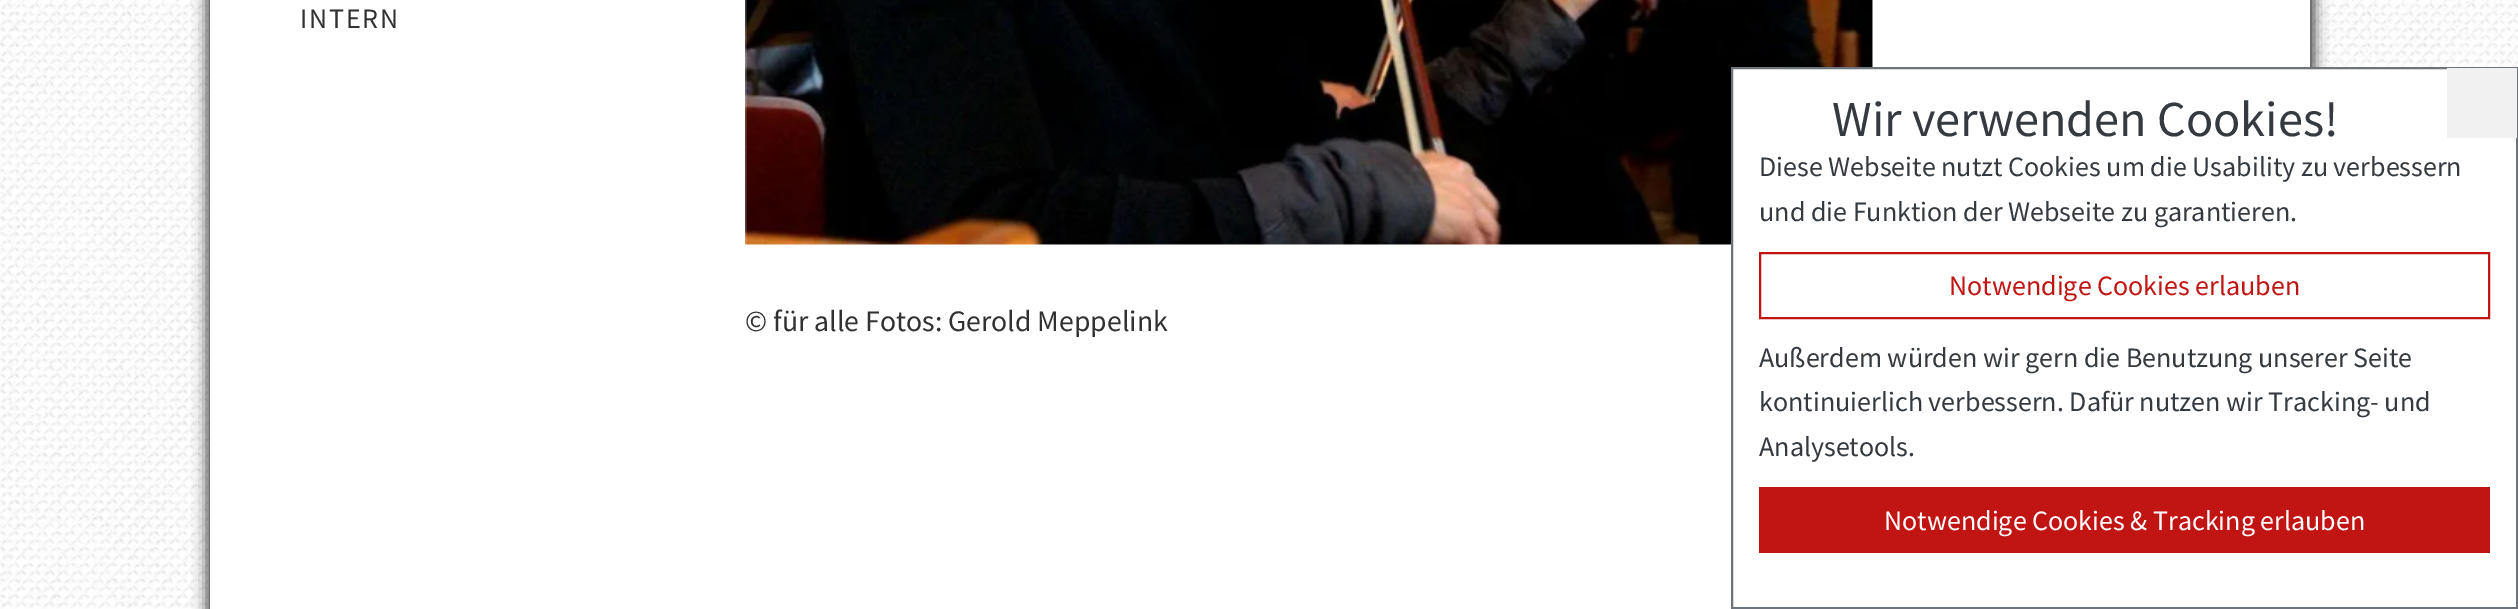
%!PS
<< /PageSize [2518 609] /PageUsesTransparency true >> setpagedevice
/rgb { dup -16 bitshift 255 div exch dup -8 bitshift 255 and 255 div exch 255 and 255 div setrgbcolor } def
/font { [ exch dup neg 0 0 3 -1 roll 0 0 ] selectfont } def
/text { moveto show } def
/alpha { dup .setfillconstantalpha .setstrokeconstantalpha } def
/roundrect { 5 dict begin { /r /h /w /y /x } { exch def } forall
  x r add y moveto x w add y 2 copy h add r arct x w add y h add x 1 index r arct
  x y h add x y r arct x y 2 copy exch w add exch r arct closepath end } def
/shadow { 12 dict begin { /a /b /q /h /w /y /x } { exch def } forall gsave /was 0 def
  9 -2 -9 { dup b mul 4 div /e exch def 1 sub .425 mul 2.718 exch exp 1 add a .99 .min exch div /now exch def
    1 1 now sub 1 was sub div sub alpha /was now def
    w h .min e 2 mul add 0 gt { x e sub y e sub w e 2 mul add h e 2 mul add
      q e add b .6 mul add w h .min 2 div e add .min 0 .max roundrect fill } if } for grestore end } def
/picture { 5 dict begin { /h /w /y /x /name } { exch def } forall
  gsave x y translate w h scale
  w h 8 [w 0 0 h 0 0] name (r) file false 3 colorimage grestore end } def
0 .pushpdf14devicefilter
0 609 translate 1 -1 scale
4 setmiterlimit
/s1 { /SourceSansPro-Regular 29.75 font 16#313131 rgb } def
/s2 { /SourceSansPro-Regular 50.4 font 16#343A40 rgb } def
/s3 { /SourceSansPro-Regular 28 font 16#343A40 rgb } def
/s4 { /SourceSansPro-Regular 28 font 16#C01512 rgb } def
/s5 { /SourceSansPro-Regular 28 font 16#FFFFFF rgb } def
16#FFFFFF rgb
0 0 2518 609 rectfill
(pic1.raw) 0 0 2518 609 picture
16#333333 rgb
207 -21 2107 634 0 7 1 shadow
16#FFFFFF rgb
210 0 2100 609 rectfill
/SourceSansPro-Regular 28 font
16#313131 rgb
300 28 moveto 1.75 0 (INTERN) ashow
(pic2.raw) 745 0 1128 245 picture
s1
(© für alle Fotos: Gerold Meppelink) 745 331 text
16#FFFFFF rgb
1732 68 moveto 2517 68 lineto 2517 608 lineto 1732 608 lineto closepath gsave fill grestore
16#6C757D rgb
2 setlinewidth
stroke
s2
(Wir verwenden Cookies!) 1832 136 text
16#F1F1F1 rgb
2447 68 70 70 rectfill
s3
(Diese Webseite nutzt Cookies um die Usability zu verbessern) 1759 176 text
(und die Funktion der Webseite zu garantieren.) 1759 221 text
16#C01512 rgb
1760 253 729 65 rectstroke
(Notwendige Cookies erlauben) 1949 295 text
s3
(Außerdem würden wir gern die Benutzung unserer Seite) 1759 367 text
(kontinuierlich verbessern. Dafür nutzen wir Tracking- und) 1759 411 text
(Analysetools.) 1759 456 text
16#C01512 rgb
1759 487 731 66 rectfill
s5
(Notwendige Cookies & Tracking erlauben) 1884 530 text
.poppdf14devicefilter showpage
